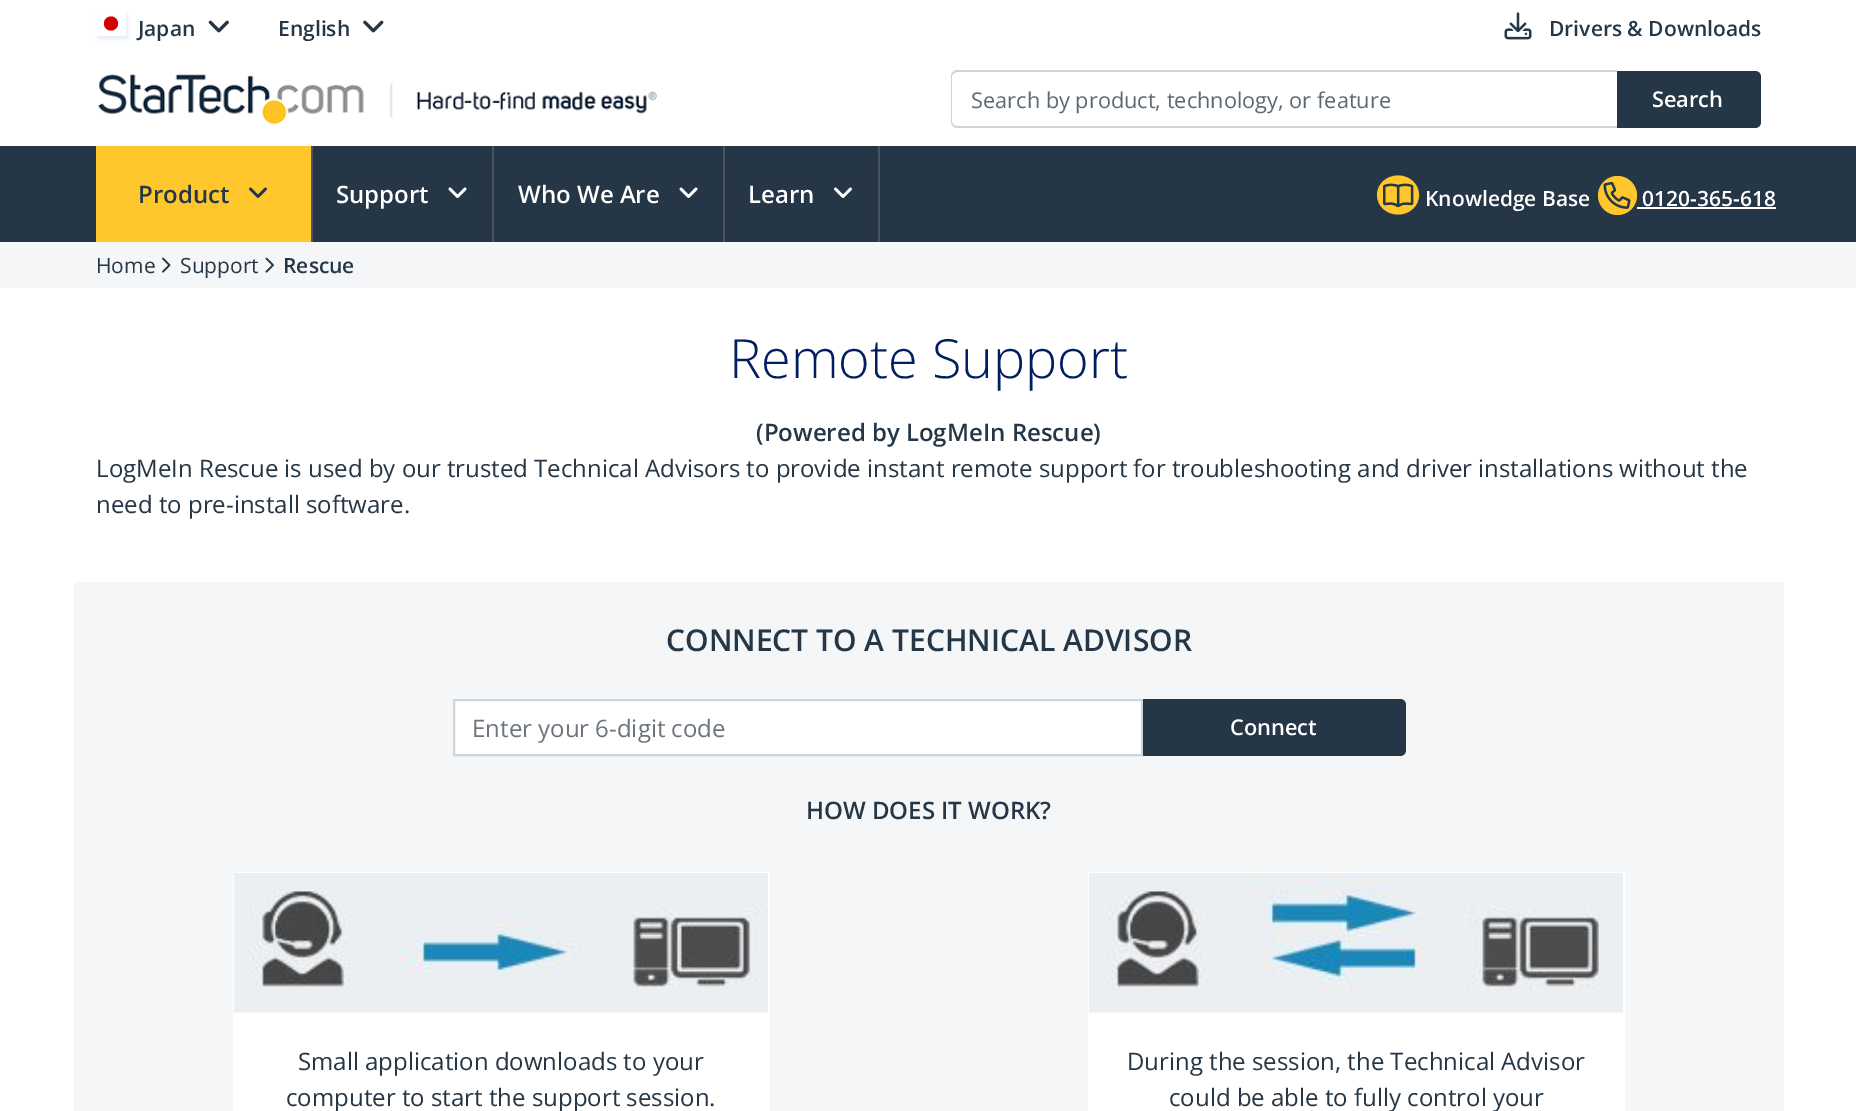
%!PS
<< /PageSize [1856 1111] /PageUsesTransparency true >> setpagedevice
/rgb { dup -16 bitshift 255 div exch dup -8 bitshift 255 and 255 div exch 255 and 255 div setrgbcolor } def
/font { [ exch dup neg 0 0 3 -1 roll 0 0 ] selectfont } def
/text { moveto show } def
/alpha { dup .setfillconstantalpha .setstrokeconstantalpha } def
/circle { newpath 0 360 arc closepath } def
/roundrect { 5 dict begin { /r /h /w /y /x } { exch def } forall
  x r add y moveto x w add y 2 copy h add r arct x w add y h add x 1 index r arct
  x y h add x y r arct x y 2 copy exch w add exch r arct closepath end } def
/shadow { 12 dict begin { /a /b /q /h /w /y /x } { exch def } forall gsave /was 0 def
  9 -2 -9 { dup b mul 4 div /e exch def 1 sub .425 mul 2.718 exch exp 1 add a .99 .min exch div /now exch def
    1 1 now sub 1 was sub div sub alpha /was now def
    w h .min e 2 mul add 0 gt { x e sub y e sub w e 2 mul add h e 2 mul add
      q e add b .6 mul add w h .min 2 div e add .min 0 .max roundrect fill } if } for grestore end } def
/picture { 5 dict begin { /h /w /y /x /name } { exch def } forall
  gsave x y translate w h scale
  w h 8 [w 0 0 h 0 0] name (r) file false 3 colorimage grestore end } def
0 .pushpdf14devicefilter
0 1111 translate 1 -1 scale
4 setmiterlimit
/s1 { /OpenSans-SemiBold 21 font 16#253746 rgb } def
/s2 { /OpenSans-Regular 21.75 font 16#5C6975 rgb } def
/s3 { /OpenSans-SemiBold 21.75 font 16#FFFFFF rgb } def
/s4 { /OpenSans-SemiBold 24 font 16#253746 rgb } def
/s5 { /OpenSans-SemiBold 24 font 16#FFFFFF rgb } def
/s6 { /OpenSans-SemiBold 21 font 16#FFFFFF rgb } def
/s7 { /OpenSans-Regular 21 font 16#253746 rgb } def
/s8 { /OpenSans-Light 54 font 16#001E60 rgb } def
/s9 { /OpenSans-Regular 24 font 16#253746 rgb } def
/s10 { /OpenSans-SemiBold 30 font 16#253746 rgb } def
/s11 { /OpenSans-Regular 24 font 16#6C757D rgb } def
16#FFFFFF rgb
0 0 1856 1111 rectfill
gsave
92 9 moveto 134 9 lineto 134 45 lineto 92 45 lineto closepath 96 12 moveto 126 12 lineto 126 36 lineto 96 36 lineto closepath eoclip newpath
16#0B5780 rgb
98 15 30 24 0 1.5 0.1 shadow
grestore
16#D30000 rgb
111 23.5 7 circle fill
s1
(Japan) 138 36 text
(pic1.raw) 208 20 21 13 picture
(English) 278 36 text
(pic2.raw) 363 20 21 13 picture
(pic3.raw) 1504 12 28 28 picture
(Drivers & Downloads) 1549 36 text
(pic4.raw) 98 74 559 51 picture
1616 71 moveto 1755 71 lineto 1758.5 71 1761 73.5 1761 77 curveto 1761 122 lineto 1761 125.5 1758.5 128 1755 128 curveto 1616 128 lineto closepath fill
16#FFFFFF rgb
958 72 moveto 1617 72 lineto 1617 126 lineto 958 126 lineto 955 126 953 124 953 121 curveto 953 77 lineto 953 74 955 72 958 72 curveto closepath fill
16#CED4DA rgb
957 70 moveto 1617 70 lineto 1617 128 lineto 957 128 lineto 954 128 951 125 951 122 curveto 951 76 lineto 951 73 954 70 957 70 curveto closepath 957 72 moveto 1617 72 lineto 1617 126 lineto 957 126 lineto 955 126 952 124 952 122 curveto 952 76 lineto 952 74 955 72 957 72 curveto closepath eofill
s2
(Search by product, technology, or feature) 971 108 text
s3
(Search) 1652 107 text
16#253746 rgb
0 146 1856 96 rectfill
16#FFC72C rgb
96 146 215 96 rectfill
16#4A555E rgb
311 146 2 96 rectfill
s4
(Product) 138 203 text
(pic5.raw) 249 187 18 11 picture
16#4A555E rgb
492 146 2 96 rectfill
s5
(Support) 336 203 text
(pic6.raw) 448 187 19 11 picture
16#4A555E rgb
723 146 2 96 rectfill
s5
(Who We Are) 518 203 text
(pic6.raw) 679 187 19 11 picture
16#4A555E rgb
878 146 2 96 rectfill
s5
(Learn) 748 203 text
(pic7.raw) 834 187 18 11 picture
16#FFC72C rgb
1398 175.5 moveto 1409.5 175.5 1419 184 1419 195 curveto 1419 206 1409.5 214.5 1398 214.5 curveto 1386.5 214.5 1377 206 1377 195 curveto 1377 184 1386.5 175.5 1398 175.5 curveto closepath fill
(pic8.raw) 1383 183 31 25 picture
s6
(Knowledge Base) 1425 206 text
16#FFC72C rgb
1617.5 195.5 19.5 circle fill
(pic9.raw) 1603 181 28 28 picture
s6
(0120-365-618) 1642 206 text
1637 207 139 2 rectfill
16#F4F6F8 rgb
0 242 1856 46 rectfill
s7
(Home) 96 273 text
(pic10.raw) 162 257 9 16 picture
(Support) 180 273 text
(pic11.raw) 265 257 9 16 picture
s1
(Rescue) 283 273 text
s8
(Remote Support) 729 378 text
s4
(\(Powered by LogMeIn Rescue\)) 756 441 text
s9
(LogMeIn Rescue is used by our trusted Technical Advisors to provide instant remote support for troubleshooting and driver installations without the) 96 477 text
(need to pre-install software.) 96 513 text
16#F4F6F8 rgb
74 582 1710 529 rectfill
s10
(CONNECT TO A TECHNICAL ADVISOR) 666 651 text
16#FFFFFF rgb
454 700 moveto 1142 700 lineto 1142 755 lineto 454 755 lineto closepath gsave fill grestore
16#CED4DA rgb
2 setlinewidth
stroke
s11
(Enter your 6-digit code) 472 737 text
16#253746 rgb
1143 699 moveto 1400 699 lineto 1403.5 699 1406 701.5 1406 705 curveto 1406 750 lineto 1406 753.5 1403.5 756 1400 756 curveto 1143 756 lineto closepath fill
s3
(Connect) 1230 735 text
s4
(HOW DOES IT WORK?) 806 819 text
16#FFFFFF rgb
233 872 537 239 rectfill
(pic12.raw) 234 873 534 140 picture
s9
(Small application downloads to your) 298 1070 text
(computer to start the support session.) 286 1106 text
16#FFFFFF rgb
1088 872 537 239 rectfill
(pic13.raw) 1089 873 534 140 picture
s9
(During the session, the Technical Advisor) 1127 1070 text
(could be able to fully control your) 1169 1106 text
.poppdf14devicefilter showpage
